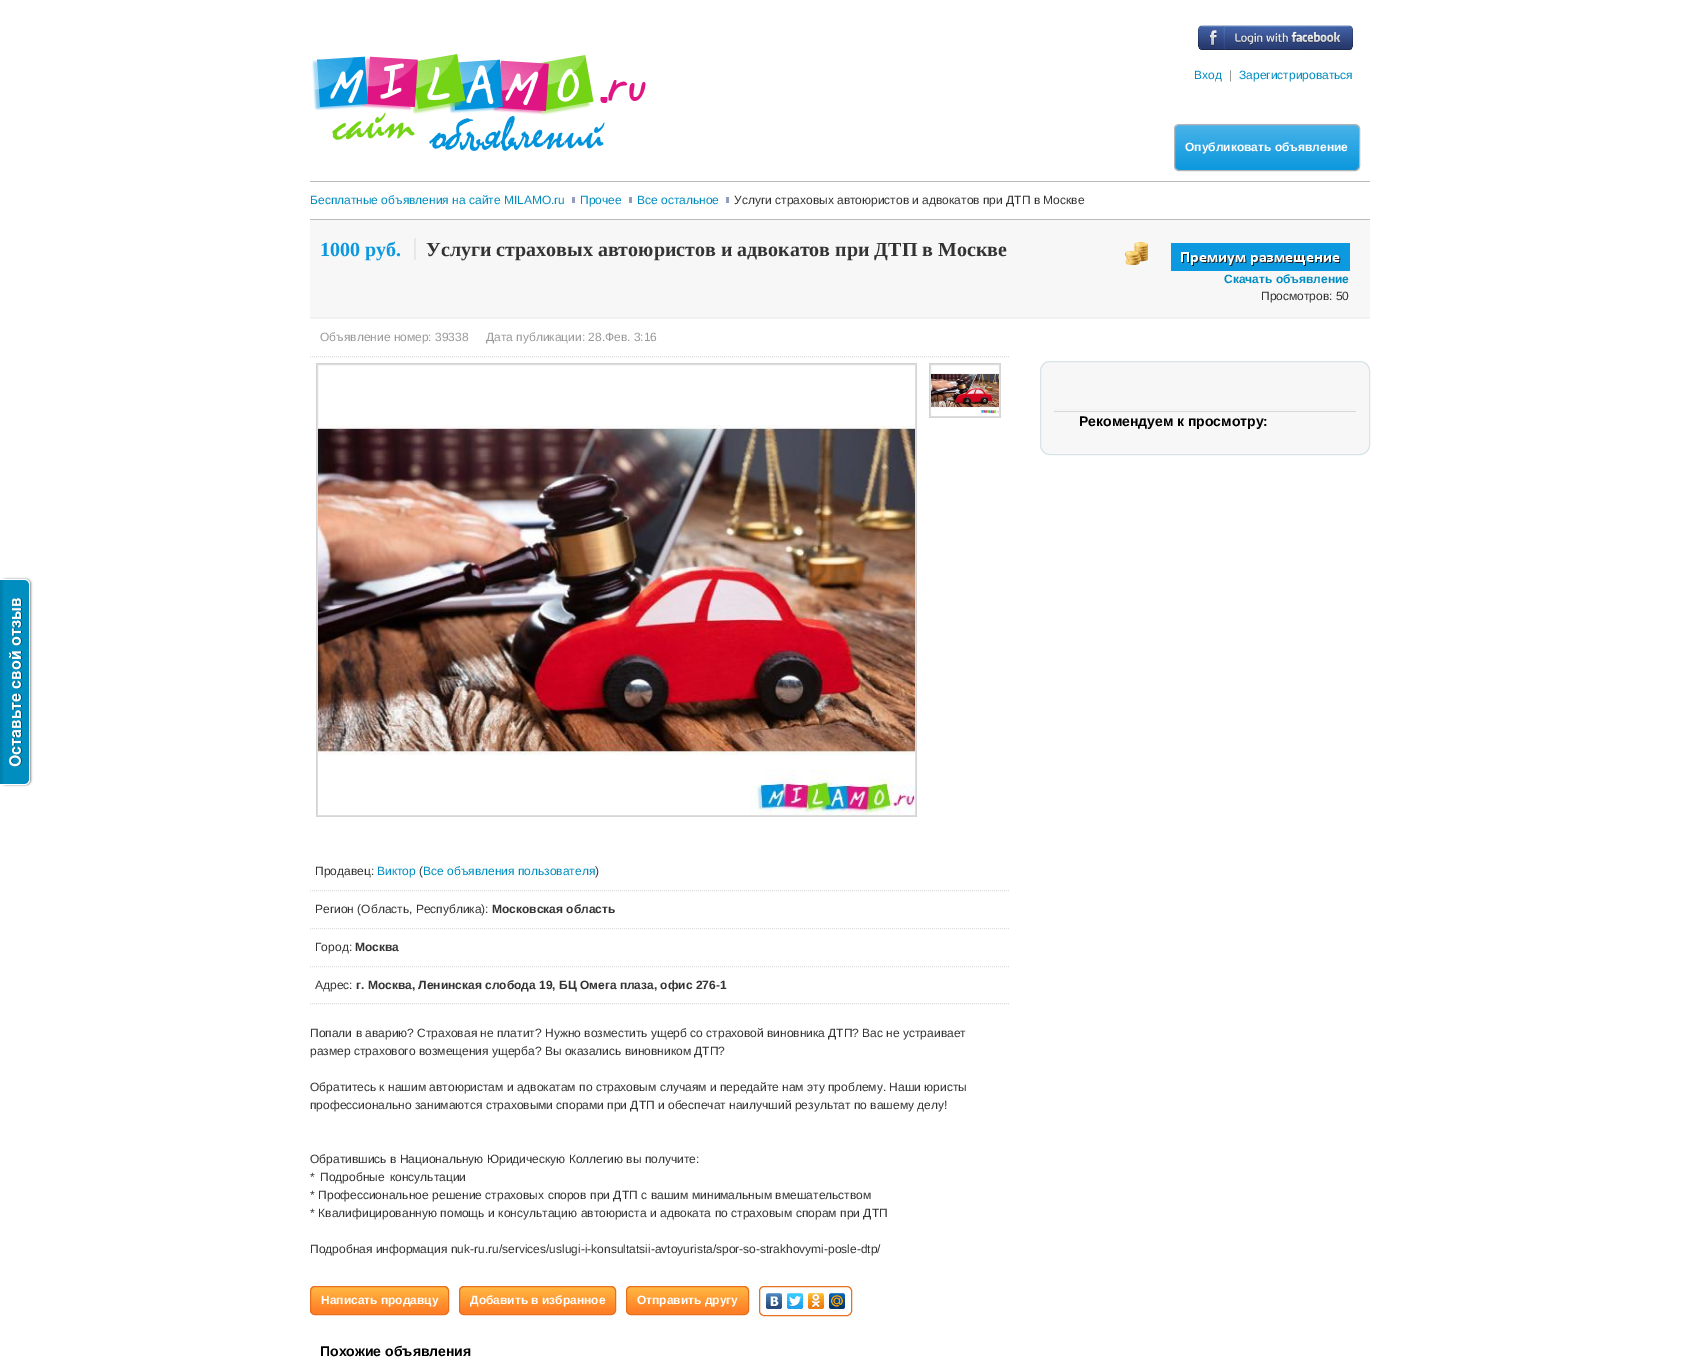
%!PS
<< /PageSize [1689 1361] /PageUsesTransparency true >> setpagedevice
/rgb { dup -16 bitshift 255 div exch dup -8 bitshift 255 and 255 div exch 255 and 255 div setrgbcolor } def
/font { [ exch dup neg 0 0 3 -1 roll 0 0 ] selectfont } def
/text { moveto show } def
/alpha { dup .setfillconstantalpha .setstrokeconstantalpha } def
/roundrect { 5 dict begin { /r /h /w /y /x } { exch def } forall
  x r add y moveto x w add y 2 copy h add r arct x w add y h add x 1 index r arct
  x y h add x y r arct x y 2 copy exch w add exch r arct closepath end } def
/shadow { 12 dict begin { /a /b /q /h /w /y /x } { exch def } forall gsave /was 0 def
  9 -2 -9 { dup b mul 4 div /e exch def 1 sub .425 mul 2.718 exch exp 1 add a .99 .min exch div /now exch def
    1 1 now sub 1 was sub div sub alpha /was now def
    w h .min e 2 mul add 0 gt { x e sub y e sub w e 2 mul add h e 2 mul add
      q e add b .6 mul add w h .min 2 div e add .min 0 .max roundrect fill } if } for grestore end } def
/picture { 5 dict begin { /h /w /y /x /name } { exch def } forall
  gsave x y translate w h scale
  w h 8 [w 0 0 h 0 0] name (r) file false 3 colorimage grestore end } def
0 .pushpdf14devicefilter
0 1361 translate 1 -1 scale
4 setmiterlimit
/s1 { /LiberationSans-Regular 12 font 16#008CC0 rgb } def
/s2 { /LiberationSans-Regular 12 font 16#999999 rgb } def
/s3 { /LiberationSans-Bold 12 font 16#FFFFFF rgb } def
/s4 { /LiberationSans-Regular 12 font 16#333333 rgb } def
/s5 { /LiberationSerif-Bold 20 font 16#0C98DF rgb } def
/s6 { /LiberationSerif-Bold 20 font 16#333333 rgb } def
/s7 { /LiberationSans-Bold 12 font 16#008CC0 rgb } def
/s8 { /LiberationSans-Bold 12 font 16#333333 rgb } def
/s9 { /LiberationSans-Bold 14 font 16#000000 rgb } def
16#FFFFFF rgb
0 0 1689 1361 rectfill
16#888888 rgb
1 579 30 206 5 1 1 shadow
16#008DC0 rgb
0 579 moveto 25 579 lineto 28 579 30 581 30 584 curveto 30 780 lineto 30 783 28 785 25 785 curveto 0 785 lineto closepath fill
(pic1.raw) 0 580 4 204 picture
16#FFFFFF rgb
0 579 moveto 25 579 lineto 28 579 30 581 30 584 curveto 30 780 lineto 30 783 28 785 25 785 curveto 0 785 lineto closepath 0 580 moveto 25 580 lineto 27 580 29 582 29 584 curveto 29 780 lineto 29 782 27 784 25 784 curveto 0 784 lineto closepath eofill
(pic2.raw) 9 598 13 169 picture
16#BBBBBB rgb
310 181 1060 1 rectfill
(pic3.raw) 312 54 334 97 picture
(pic4.raw) 1198 25 155 25 picture
s1
(Вход) 1194 79 text
s2
(|) 1229 79 text
s1
(Зарегистрироваться) 1239 79 text
(pic5.raw) 1174 125 186 46 picture
16#B4B4B4 rgb
1174.5 124.5 185 46 4.5 roundrect stroke
s3
(Опубликовать объявление) 1185 151 text
16#BBBBBB rgb
310 219 1060 1 rectfill
s1
(Бесплатные объявления на сайте MILAMO.ru) 310 204 text
16#959BBC rgb
572 197 3 6 rectfill
s1
(Прочее) 580 204 text
16#959BBC rgb
629 197 3 6 rectfill
s1
(Все остальное) 637 204 text
16#959BBC rgb
726 197 3 6 rectfill
s4
(Услуги страховых автоюристов и адвокатов при ДТП в Москве) 734 204 text
16#F7F7F7 rgb
310 220 1060 97 rectfill
16#F2F2F2 rgb
310 317 1060 2 rectfill
s5
(1000 руб.) 320 256 text
16#E8E8E8 rgb
414 238 2 22 rectfill
s6
(Услуги страховых автоюристов и адвокатов при ДТП в Москве) 426 256 text
(pic6.raw) 1125 242 23 23 picture
(pic7.raw) 1171 243 179 28 picture
s7
(Скачать объявление) 1224 283 text
s4
(Просмотров: 50) 1261 300 text
16#DDDDDD rgb
[1 1] 0 setdash
310 356.5 moveto 1010 356.5 lineto stroke
s2
(Объявление номер: 39338) 320 341 text
(Дата публикации: 28.Фев. 3:16) 486 341 text
16#D3D3D3 rgb
316 363 601 1 rectfill
916 363 1 454 rectfill
316 816 601 1 rectfill
316 363 1 454 rectfill
16#DDDDDD rgb
[] 0 setdash
317.5 364.5 598 451 rectstroke
(pic8.raw) 318 425 597 390 picture
16#D3D3D3 rgb
929 363 72 1 rectfill
1000 363 1 55 rectfill
929 417 72 1 rectfill
929 363 1 55 rectfill
16#DDDDDD rgb
930.5 364.5 69 52 rectstroke
(pic9.raw) 931 373 68 41 picture
[1 1] 0 setdash
310 890.5 moveto 1010 890.5 lineto stroke
s4
(Продавец:) 315 875 text
s1
(Виктор) 377 875 text
s4
(\() 419 875 text
s1
(Все объявления пользователя) 423 875 text
s4
(\)) 595 875 text
16#DDDDDD rgb
310 928.5 moveto 1010 928.5 lineto stroke
s4
(Регион \(Область, Республика\):) 315 913 text
s8
(Московская область) 492 913 text
16#DDDDDD rgb
310 966.5 moveto 1010 966.5 lineto stroke
s4
(Город:) 315 951 text
s8
(Москва) 355 951 text
16#DDDDDD rgb
310 1003.5 moveto 1010 1003.5 lineto stroke
s4
(Адрес:) 315 989 text
s8
(г. Москва, Ленинская слобода 19, БЦ Омега плаза, офис 276-1) 356 989 text
s4
(Попали в аварию? Страховая не платит? Нужно возместить ущерб со страховой виновника ДТП? Вас не устраивает) 310 1037 text
(размер страхового возмещения ущерба? Вы оказались виновником ДТП?) 310 1055 text
(Обратитесь к нашим автоюристам и адвокатам по страховым случаям и передайте нам эту проблему. Наши юристы) 310 1091 text
(профессионально занимаются страховыми спорами при ДТП и обеспечат наилучший результат по вашему делу!) 310 1109 text
(Обратившись в Национальную Юридическую Коллегию вы получите:) 310 1163 text
310 1181 moveto 2 0 32 (* Подробные консультации) widthshow
310 1199 moveto 0.25 0 32 (* Профессиональное решение страховых споров при ДТП с вашим минимальным вмешательством) widthshow
310 1217 moveto 0.25 0 32 (* Квалифицированную помощь и консультацию автоюриста и адвоката по страховым спорам при ДТП) widthshow
(Подробная информация nuk-ru.ru/services/uslugi-i-konsultatsii-avtoyurista/spor-so-strakhovymi-posle-dtp/) 310 1253 text
16#FF7F26 rgb
310 1286 139 29 5 roundrect fill
(pic10.raw) 310 1287 139 25 picture
16#E67020 rgb
[] 0 setdash
310.5 1286.5 138 28 4.5 roundrect stroke
s3
(Написать продавцу) 321 1304 text
16#FF7F26 rgb
459 1286 157 29 5 roundrect fill
(pic11.raw) 459 1287 157 25 picture
16#E67020 rgb
459.5 1286.5 156 28 4.5 roundrect stroke
s3
(Добавить в избранное) 470 1304 text
16#FF7F26 rgb
626 1286 123 29 5 roundrect fill
(pic12.raw) 626 1287 123 25 picture
16#E67020 rgb
626.5 1286.5 122 28 4.5 roundrect stroke
s3
(Отправить другу) 637 1304 text
16#E67020 rgb
759.5 1286.5 92 29 4.5 roundrect stroke
(pic13.raw) 766 1293 16 16 picture
(pic14.raw) 787 1293 16 16 picture
(pic15.raw) 808 1293 16 16 picture
(pic16.raw) 829 1293 16 16 picture
s9
(Похожие объявления) 320 1356 text
16#F7F7F7 rgb
1040.5 361.5 329 93 9.5 roundrect gsave fill grestore
16#D7E3E7 rgb
stroke
16#F2F2F2 rgb
1054 409 302 1 rectfill
16#D7D7D7 rgb
1054 411 302 1 rectfill
s9
(Рекомендуем к просмотру:) 1079 426 text
.poppdf14devicefilter showpage
